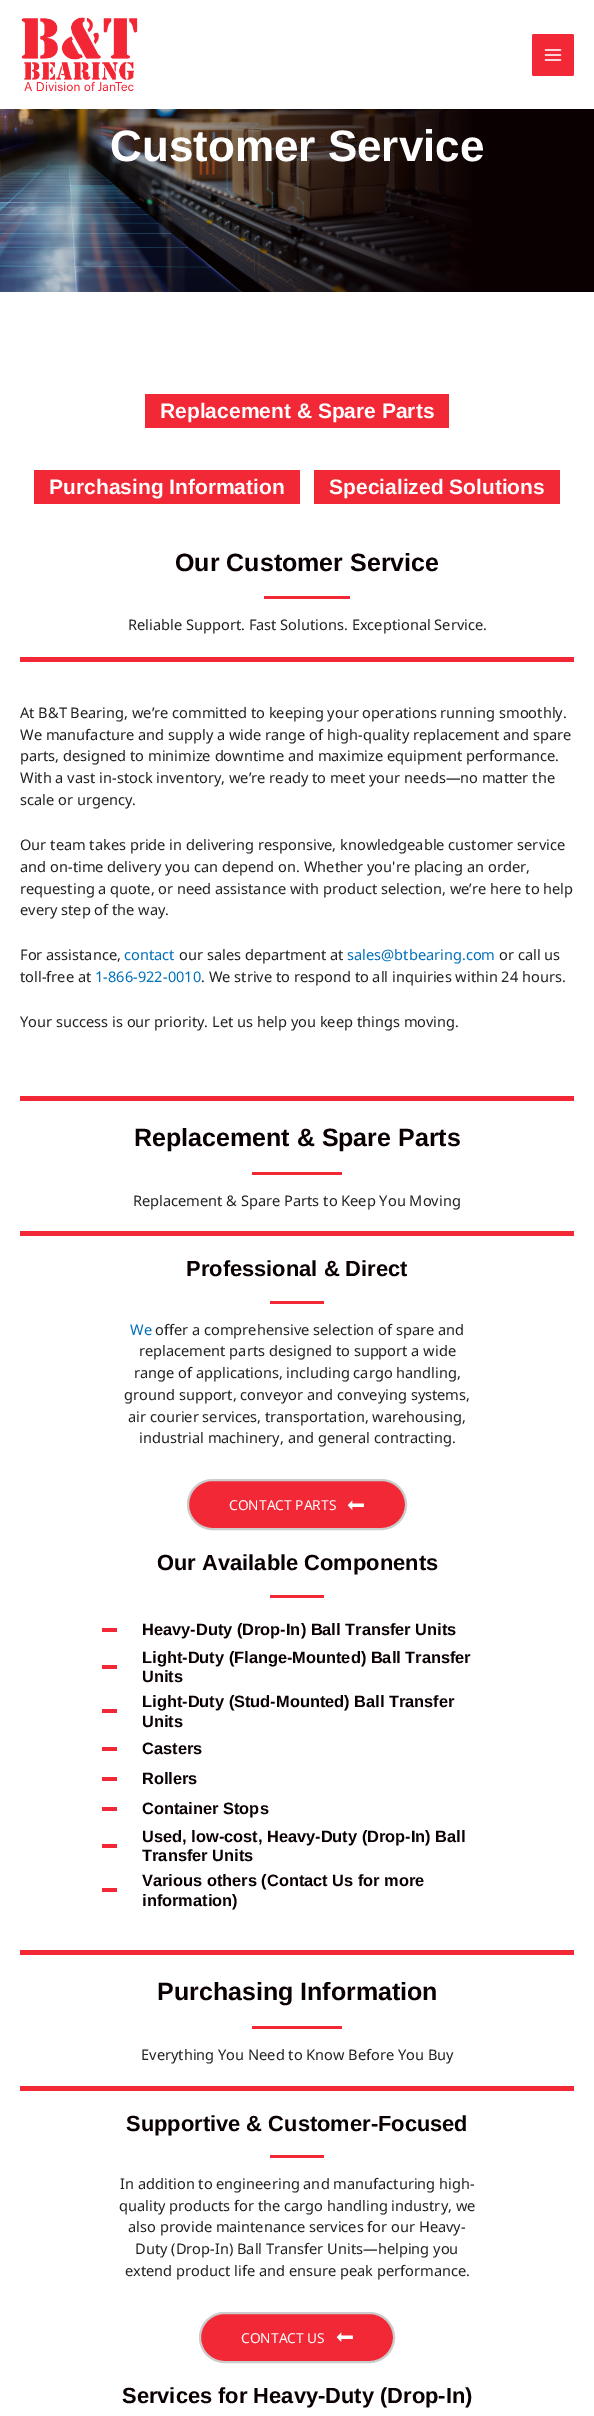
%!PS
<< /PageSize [594 2416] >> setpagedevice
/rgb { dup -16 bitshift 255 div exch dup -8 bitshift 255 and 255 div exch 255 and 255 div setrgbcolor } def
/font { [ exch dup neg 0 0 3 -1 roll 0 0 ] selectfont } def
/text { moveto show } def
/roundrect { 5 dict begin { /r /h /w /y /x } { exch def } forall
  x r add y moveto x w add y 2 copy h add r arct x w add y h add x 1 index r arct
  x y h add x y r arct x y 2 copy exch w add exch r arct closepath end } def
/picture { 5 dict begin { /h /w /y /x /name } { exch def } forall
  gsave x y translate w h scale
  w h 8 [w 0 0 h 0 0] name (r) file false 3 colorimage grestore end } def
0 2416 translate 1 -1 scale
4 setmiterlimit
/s1 { /LiberationSans-Bold 44 font 16#FFFFFF rgb } def
/s2 { /LiberationSans-Bold 21 font 16#FFFFFF rgb } def
/s3 { /LiberationSans-Bold 25 font 16#0A0001 rgb } def
/s4 { /NotoSans-Regular 14.6 font 16#222222 rgb } def
/s5 { /NotoSans-Regular 14.6 font 16#0170B9 rgb } def
/s6 { /LiberationSans-Bold 21.9 font 16#0A0001 rgb } def
/s7 { /NotoSans-Regular 13.75 font 16#FFFFFF rgb } def
/s8 { /LiberationSans-Bold 16.4 font 16#0A0001 rgb } def
16#FFFFFF rgb
0 0 594 2416 rectfill
(pic1.raw) 21 17 117 75 picture
16#F32836 rgb
532 34 42 42 2 roundrect fill
(pic2.raw) 544 49 18 12 picture
(pic3.raw) 0 109 594 183 picture
s1
(Customer Service) 110 161 text
16#F32836 rgb
145 394 304 34 rectfill
s2
(Replacement & Spare Parts) 160 418 text
16#F32836 rgb
34 470 266 34 rectfill
s2
(Purchasing Information) 49 494 text
16#F32836 rgb
314 470 246 34 rectfill
s2
(Specialized Solutions) 329 494 text
s3
(Our Customer Service) 175 571 text
16#F32836 rgb
264 596 86 3 rectfill
s4
(Reliable Support. Fast Solutions. Exceptional Service.) 128 630 text
16#F32836 rgb
20 657 554 5 rectfill
s4
(At B&T Bearing, we’re committed to keeping your operations running smoothly.) 20 718 text
(We manufacture and supply a wide range of high-quality replacement and spare) 20 740 text
(parts, designed to minimize downtime and maximize equipment performance.) 20 761 text
(With a vast in-stock inventory, we’re ready to meet your needs—no matter the) 20 783 text
(scale or urgency.) 20 805 text
(Our team takes pride in delivering responsive, knowledgeable customer service) 20 850 text
(and on-time delivery you can depend on. Whether you're placing an order,) 20 872 text
(requesting a quote, or need assistance with product selection, we’re here to help) 20 894 text
(every step of the way.) 20 915 text
(For assistance,) 20 960 text
s5
(contact) 124 960 text
s4
(our sales department at) 179 960 text
s5
(sales@btbearing.com) 347 960 text
s4
(or call us) 499 960 text
(toll-free at) 20 982 text
s5
(1-866-922-0010) 95 982 text
s4
(. We strive to respond to all inquiries within 24 hours.) 201 982 text
(Your success is our priority. Let us help you keep things moving.) 20 1027 text
16#F32836 rgb
20 1096 554 5 rectfill
s3
(Replacement & Spare Parts) 134 1146 text
16#F32836 rgb
252 1172 90 3 rectfill
s4
(Replacement & Spare Parts to Keep You Moving) 133 1206 text
16#F32836 rgb
20 1231 554 5 rectfill
s6
(Professional & Direct) 186 1276 text
16#F32836 rgb
270 1301 54 3 rectfill
s5
(We) 130 1335 text
s4
(offer a comprehensive selection of spare and) 155 1335 text
(replacement parts designed to support a wide) 139 1356 text
(range of applications, including cargo handling,) 134 1378 text
(ground support, conveyor and conveying systems,) 124 1400 text
(air courier services, transportation, warehousing,) 128 1422 text
(industrial machinery, and general contracting.) 139 1443 text
16#F32836 rgb
188 1480 218 49 24.5 roundrect gsave fill grestore
16#CCCCCC rgb
2 setlinewidth
stroke
s7
(CONTACT PARTS) 229 1510 text
(pic4.raw) 347 1500 17 10 picture
s6
(Our Available Components) 157 1570 text
16#F32836 rgb
270 1595 54 3 rectfill
102 1628 15 4 rectfill
s8
(Heavy-Duty \(Drop-In\) Ball Transfer Units) 142 1635 text
16#F32836 rgb
102 1665 15 4 rectfill
s8
(Light-Duty \(Flange-Mounted\) Ball Transfer) 142 1663 text
(Units) 142 1682 text
16#F32836 rgb
102 1709 15 4 rectfill
s8
(Light-Duty \(Stud-Mounted\) Ball Transfer) 142 1707 text
(Units) 142 1727 text
16#F32836 rgb
102 1747 15 4 rectfill
s8
(Casters) 142 1754 text
16#F32836 rgb
102 1777 15 4 rectfill
s8
(Rollers) 142 1784 text
16#F32836 rgb
102 1807 15 4 rectfill
s8
(Container Stops) 142 1814 text
16#F32836 rgb
102 1844 15 4 rectfill
s8
(Used, low-cost, Heavy-Duty \(Drop-In\) Ball) 142 1842 text
(Transfer Units) 142 1861 text
16#F32836 rgb
102 1888 15 4 rectfill
s8
(Various others \(Contact Us for more) 142 1886 text
(information\)) 142 1906 text
16#F32836 rgb
20 1950 554 5 rectfill
s3
(Purchasing Information) 157 2000 text
16#F32836 rgb
252 2026 90 3 rectfill
s4
(Everything You Need to Know Before You Buy) 141 2060 text
16#F32836 rgb
20 2086 554 5 rectfill
s6
(Supportive & Customer-Focused) 126 2131 text
16#F32836 rgb
270 2155 54 3 rectfill
s4
(In addition to engineering and manufacturing high-) 120 2189 text
(quality products for the cargo handling industry, we) 119 2211 text
(also provide maintenance services for our Heavy-) 128 2232 text
(Duty \(Drop-In\) Ball Transfer Units—helping you) 135 2254 text
(extend product life and ensure peak performance.) 125 2276 text
16#F32836 rgb
200 2313 194 49 24.5 roundrect gsave fill grestore
16#CCCCCC rgb
stroke
s7
(CONTACT US) 241 2343 text
(pic4.raw) 336 2332 17 10 picture
s6
(Services for Heavy-Duty \(Drop-In\)) 122 2403 text
showpage
